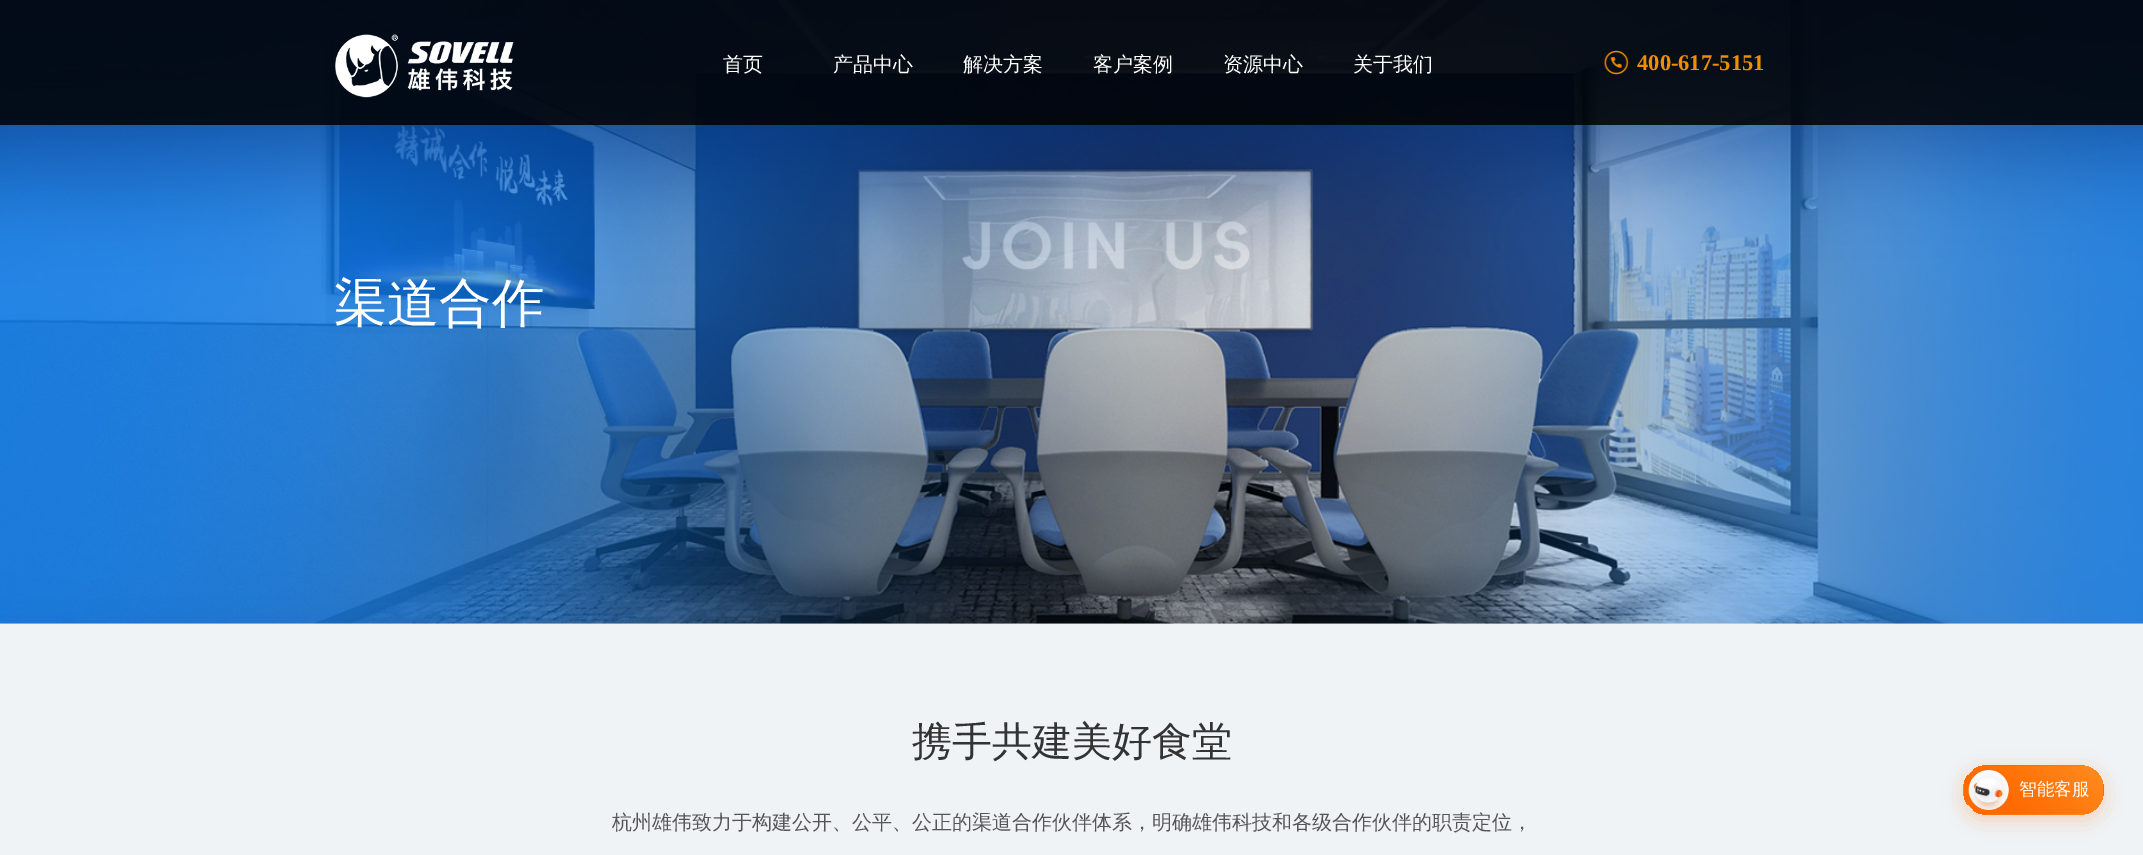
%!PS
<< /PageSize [2143 855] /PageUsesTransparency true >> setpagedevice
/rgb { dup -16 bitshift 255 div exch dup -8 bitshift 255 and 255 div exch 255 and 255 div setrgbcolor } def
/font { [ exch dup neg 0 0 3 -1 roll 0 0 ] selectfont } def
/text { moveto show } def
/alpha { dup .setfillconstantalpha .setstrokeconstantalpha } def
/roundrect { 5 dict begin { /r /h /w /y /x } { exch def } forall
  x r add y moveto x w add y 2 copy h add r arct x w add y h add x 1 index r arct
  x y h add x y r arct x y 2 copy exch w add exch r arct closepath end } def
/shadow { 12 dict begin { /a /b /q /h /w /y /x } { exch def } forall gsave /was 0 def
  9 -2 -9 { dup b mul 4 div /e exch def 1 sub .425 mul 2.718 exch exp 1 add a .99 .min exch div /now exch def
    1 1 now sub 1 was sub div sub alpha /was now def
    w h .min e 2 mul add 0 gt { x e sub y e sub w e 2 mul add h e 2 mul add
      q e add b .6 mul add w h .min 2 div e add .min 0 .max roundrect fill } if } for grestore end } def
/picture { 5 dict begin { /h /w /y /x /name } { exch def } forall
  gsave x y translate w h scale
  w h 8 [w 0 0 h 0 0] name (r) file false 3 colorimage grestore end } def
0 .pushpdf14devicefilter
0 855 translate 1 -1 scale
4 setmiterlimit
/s1 { /WenQuanYiZenHei-Medium 20 font 16#FFFFFF rgb } def
/s2 { /LiberationSerif-Bold 22.5 font 16#F18D00 rgb } def
/s3 { /WenQuanYiZenHei-Medium 52.5 font 16#FFFFFF rgb } def
/s4 { /WenQuanYiZenHei-Medium 40 font 16#333333 rgb } def
/s5 { /WenQuanYiZenHei-Medium 20 font 16#555555 rgb } def
/s6 { /WenQuanYiZenHei-Medium 17.5 font 16#FFFFFF rgb } def
16#EFF3F6 rgb
0 0 2143 855 rectfill
(pic3.raw) 0 0 2143 624 picture
0.85 alpha
16#000000 rgb
0 0 2143 125 rectfill
1 alpha
(pic1.raw) 335 34 179 64 picture
s1
(首页) 723 71 text
(产品中心) 833 71 text
(解决方案) 963 71 text
(客户案例) 1093 71 text
(资源中心) 1223 71 text
(关于我们) 1353 71 text
(pic2.raw) 1604 50 25 25 picture
s2
(400-617-5151) 1637 70 text
s3
(渠道合作) 334 321 text
s4
(携手共建美好食堂) 912 755 text
s5
(杭州雄伟致力于构建公开、公平、公正的渠道合作伙伴体系，明确雄伟科技和各级合作伙伴的职责定位，) 612 829 text
16#FF6A00 rgb
1963 770 141 50 25 9.5 0.26 shadow
0.1 alpha
16#0591FF rgb
2079 815 moveto 2092.5 815 2103 804.5 2104 791.5 curveto 2103.5 789.5 lineto 2104 803 2093 815 2079 815 curveto closepath fill
1 alpha
16#FFFFFF rgb
1963 765 141 50 25 roundrect fill
gsave
1963 765 141 50 25 roundrect clip newpath
1963 765 141 50 25 roundrect clip newpath
gsave 1982 765 moveto 2085 765 lineto 2085 766 lineto 1982 766 lineto closepath clip newpath
<< /ShadingType 2 /ColorSpace /DeviceRGB /Coords [2076 695 1990 790] /Extend [true true] /Function << /FunctionType 3 /Domain [0 1] /Functions [<< /FunctionType 2 /Domain [0 1] /C0 [1 0.549 0.122] /C1 [1 0.549 0.122] /N 1 >> << /FunctionType 2 /Domain [0 1] /C0 [1 0.549 0.122] /C1 [1 0.416 0] /N 1 >> << /FunctionType 2 /Domain [0 1] /C0 [1 0.416 0] /C1 [1 0.416 0] /N 1 >>] /Bounds [0.01 0.71] /Encode [0 1 0 1 0 1] >> >> shfill grestore
gsave 1963 784 moveto 1964 784 lineto 1964 796 lineto 1963 796 lineto closepath clip newpath
<< /ShadingType 2 /ColorSpace /DeviceRGB /Coords [1937 742 1852 838] /Extend [true true] /Function << /FunctionType 3 /Domain [0 1] /Functions [<< /FunctionType 2 /Domain [0 1] /C0 [1 0.549 0.122] /C1 [1 0.549 0.122] /N 1 >> << /FunctionType 2 /Domain [0 1] /C0 [1 0.549 0.122] /C1 [1 0.416 0] /N 1 >> << /FunctionType 2 /Domain [0 1] /C0 [1 0.416 0] /C1 [1 0.416 0] /N 1 >>] /Bounds [0.01 0.71] /Encode [0 1 0 1 0 1] >> >> shfill grestore
gsave 1964 766 moveto 2103 766 lineto 2103 814 lineto 1964 814 lineto closepath clip newpath
<< /ShadingType 2 /ColorSpace /DeviceRGB /Coords [2076 742 1990 838] /Extend [true true] /Function << /FunctionType 3 /Domain [0 1] /Functions [<< /FunctionType 2 /Domain [0 1] /C0 [1 0.549 0.122] /C1 [1 0.549 0.122] /N 1 >> << /FunctionType 2 /Domain [0 1] /C0 [1 0.549 0.122] /C1 [1 0.416 0] /N 1 >> << /FunctionType 2 /Domain [0 1] /C0 [1 0.416 0] /C1 [1 0.416 0] /N 1 >>] /Bounds [0.01 0.71] /Encode [0 1 0 1 0 1] >> >> shfill grestore
gsave 2103 784 moveto 2104 784 lineto 2104 796 lineto 2103 796 lineto closepath clip newpath
<< /ShadingType 2 /ColorSpace /DeviceRGB /Coords [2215 742 2129 838] /Extend [true true] /Function << /FunctionType 3 /Domain [0 1] /Functions [<< /FunctionType 2 /Domain [0 1] /C0 [1 0.549 0.122] /C1 [1 0.549 0.122] /N 1 >> << /FunctionType 2 /Domain [0 1] /C0 [1 0.549 0.122] /C1 [1 0.416 0] /N 1 >> << /FunctionType 2 /Domain [0 1] /C0 [1 0.416 0] /C1 [1 0.416 0] /N 1 >>] /Bounds [0.01 0.71] /Encode [0 1 0 1 0 1] >> >> shfill grestore
gsave 1982 814 moveto 2085 814 lineto 2085 815 lineto 1982 815 lineto closepath clip newpath
<< /ShadingType 2 /ColorSpace /DeviceRGB /Coords [2076 790 1990 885] /Extend [true true] /Function << /FunctionType 3 /Domain [0 1] /Functions [<< /FunctionType 2 /Domain [0 1] /C0 [1 0.549 0.122] /C1 [1 0.549 0.122] /N 1 >> << /FunctionType 2 /Domain [0 1] /C0 [1 0.549 0.122] /C1 [1 0.416 0] /N 1 >> << /FunctionType 2 /Domain [0 1] /C0 [1 0.416 0] /C1 [1 0.416 0] /N 1 >>] /Bounds [0.01 0.71] /Encode [0 1 0 1 0 1] >> >> shfill grestore
grestore
(pic4.raw) 1968 770 41 40 picture
s6
(智能客服) 2019 795 text
.poppdf14devicefilter showpage
